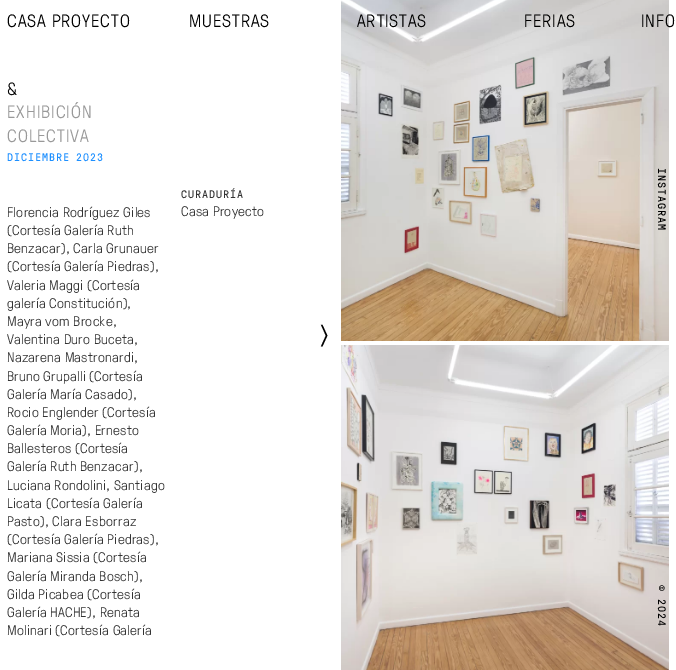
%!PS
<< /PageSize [676 670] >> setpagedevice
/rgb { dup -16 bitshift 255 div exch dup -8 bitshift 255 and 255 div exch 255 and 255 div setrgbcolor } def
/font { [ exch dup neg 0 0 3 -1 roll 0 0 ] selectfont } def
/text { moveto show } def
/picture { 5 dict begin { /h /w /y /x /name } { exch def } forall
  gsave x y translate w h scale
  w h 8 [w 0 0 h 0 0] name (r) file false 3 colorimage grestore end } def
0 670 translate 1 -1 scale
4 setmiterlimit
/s1 { /FreeSans-Regular 25 font 16#000000 rgb } def
16#FFFFFF rgb
0 0 676 670 rectfill
/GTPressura-Light 18 font
16#000000 rgb
7 27 moveto 0.9 0 (CASA PROYECTO) ashow
189 27 moveto 0.9 0 (MUESTRAS) ashow
(pic1.raw) 341 0 328 341 picture
357 27 moveto 0.9 0 (ARTISTAS) ashow
524 27 moveto 0.9 0 (FERIAS) ashow
641 27 moveto 0.9 0 (INFO) ashow
7 95 moveto 0.9 0 (&) ashow
16#999999 rgb
7 118 moveto 0.9 0 (EXHIBICIÓN) ashow
7 142 moveto 0.9 0 (COLECTIVA) ashow
/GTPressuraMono-Regular 11 font
16#1E90FF rgb
7 161 moveto 0.9 0 (DICIEMBRE 2023) ashow
/GTPressura-Light 14 font
16#333333 rgb
7 217 moveto 0.2 0 (Florencia Rodríguez Giles) ashow
7 235 moveto 0.2 0 (\(Cortesía Galería Ruth) ashow
7 253 moveto 0.2 0 (Benzacar\), Carla Grunauer) ashow
7 271 moveto 0.2 0 (\(Cortesía Galería Piedras\),) ashow
7 290 moveto 0.2 0 (Valeria Maggi \(Cortesía) ashow
7 308 moveto 0.2 0 (galería Constitución\),) ashow
7 326 moveto 0.2 0 (Mayra vom Brocke,) ashow
7 344 moveto 0.2 0 (Valentina Duro Buceta,) ashow
7 362 moveto 0.2 0 (Nazarena Mastronardi,) ashow
7 381 moveto 0.2 0 (Bruno Grupalli \(Cortesía) ashow
7 399 moveto 0.2 0 (Galería María Casado\),) ashow
7 417 moveto 0.2 0 (Rocio Englender \(Cortesía) ashow
7 435 moveto 0.2 0 (Galería Moria\), Ernesto) ashow
7 453 moveto 0.2 0 (Ballesteros \(Cortesía) ashow
7 471 moveto 0.2 0 (Galería Ruth Benzacar\),) ashow
7 490 moveto 0.2 0 (Luciana Rondolini, Santiago) ashow
7 508 moveto 0.2 0 (Licata \(Cortesía Galería) ashow
7 526 moveto 0.2 0 (Pasto\), Clara Esborraz) ashow
7 544 moveto 0.2 0 (\(Cortesía Galería Piedras\),) ashow
7 562 moveto 0.2 0 (Mariana Sissia \(Cortesía) ashow
7 581 moveto 0.2 0 (Galería Miranda Bosch\),) ashow
7 599 moveto 0.2 0 (Gilda Picabea \(Cortesía) ashow
7 617 moveto 0.2 0 (Galería HACHE\), Renata) ashow
7 635 moveto 0.2 0 (Molinari \(Cortesía Galería) ashow
/GTPressuraMono-Regular 11 font
181 198 moveto 0.9 0 (CURADURÍA) ashow
/GTPressura-Light 14 font
181 216 moveto 0.2 0 (Casa Proyecto) ashow
(pic2.raw) 341 345 328 325 picture
s1
(〉) 320 343 text
/GTPressuraMono-Regular 11 font
gsave 658 168 translate 90 rotate 0 0 moveto 0.9 0 (INSTAGRAM) ashow grestore
gsave 658 585 translate 90 rotate 0 0 moveto 0.9 0 (© 2024) ashow grestore
showpage
